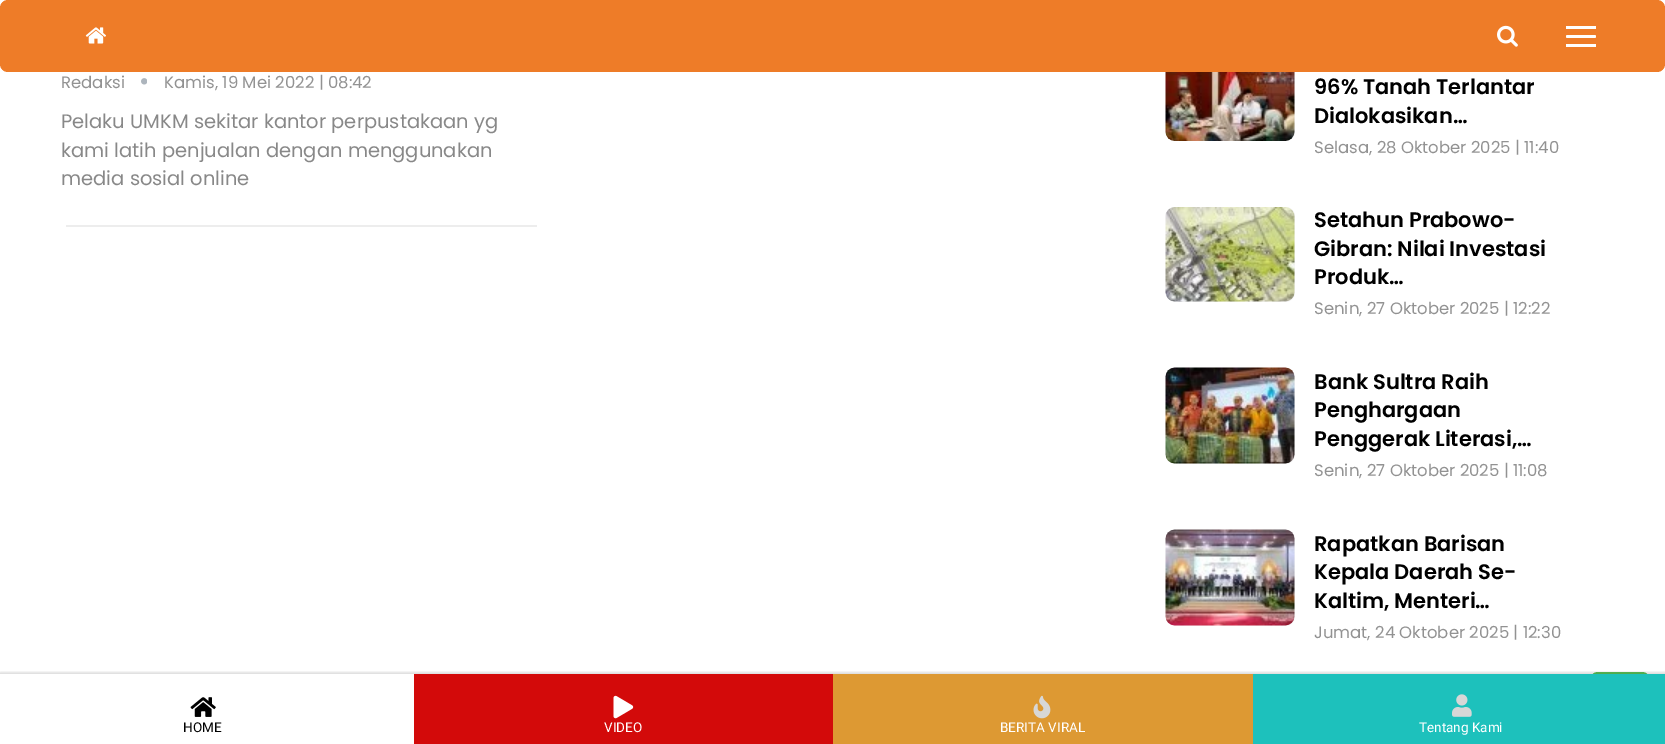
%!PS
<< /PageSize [1665 744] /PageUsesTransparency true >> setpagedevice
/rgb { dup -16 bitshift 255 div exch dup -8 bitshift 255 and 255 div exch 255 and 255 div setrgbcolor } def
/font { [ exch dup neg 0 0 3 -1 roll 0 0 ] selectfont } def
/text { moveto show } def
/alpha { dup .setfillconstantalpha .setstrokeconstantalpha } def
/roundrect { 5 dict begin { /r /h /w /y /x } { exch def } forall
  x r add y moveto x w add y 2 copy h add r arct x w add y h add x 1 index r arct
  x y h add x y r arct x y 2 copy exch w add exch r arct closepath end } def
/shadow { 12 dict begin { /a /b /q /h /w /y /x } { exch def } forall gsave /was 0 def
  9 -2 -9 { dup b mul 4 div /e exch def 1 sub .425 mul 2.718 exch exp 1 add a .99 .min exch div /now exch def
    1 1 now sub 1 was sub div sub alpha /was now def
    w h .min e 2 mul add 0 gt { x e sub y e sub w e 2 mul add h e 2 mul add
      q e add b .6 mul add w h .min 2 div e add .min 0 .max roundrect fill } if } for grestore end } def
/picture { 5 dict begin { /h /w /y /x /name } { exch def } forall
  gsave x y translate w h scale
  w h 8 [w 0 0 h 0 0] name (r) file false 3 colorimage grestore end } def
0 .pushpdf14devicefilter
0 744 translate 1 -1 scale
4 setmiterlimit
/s1 { /Poppins-Regular 16.5 font 16#929292 rgb } def
/s2 { /Poppins-Regular 19.5 font 16#888888 rgb } def
/s3 { /Poppins-SemiBold 21 font 16#000000 rgb } def
/s4 { /Roboto-Regular 13.5 font 16#000000 rgb } def
/s5 { /Roboto-Regular 13.5 font 16#FFFFFF rgb } def
16#FFFFFF rgb
0 0 1665 744 rectfill
16#F5F5F5 rgb
1166 45 129 96 9 roundrect fill
16#EE7C28 rgb
0 0 1665 72 8 roundrect fill
(pic1.raw) 85 27 21 17 picture
(pic2.raw) 1497 25 21 22 picture
16#FFFFFF rgb
1566 35 30 3 1.5 roundrect fill
1566 26 30 3 rectfill
1566 44 30 3 rectfill
s1
(Redaksi) 61 88 text
(pic3.raw) 141 78 6 7 picture
(Kamis, 19 Mei 2022 | 08:42) 164 88 text
16#EDEDED rgb
66 225 471 2 rectfill
s2
(Pelaku UMKM sekitar kantor perpustakaan yg) 61 128 text
(kami latih penjualan dengan menggunakan) 61 157 text
(media sosial online) 61 185 text
(pic4.raw) 1165 72 130 69 picture
s3
(96% Tanah Terlantar) 1314 94 text
(Dialokasikan…) 1314 123 text
s1
(Selasa, 28 Oktober 2025 | 11:40) 1314 153 text
16#F5F5F5 rgb
1166 207 129 95 9 roundrect fill
(pic5.raw) 1165 207 130 95 picture
s3
(Setahun Prabowo-) 1314 227 text
(Gibran: Nilai Investasi) 1314 256 text
(Produk…) 1314 284 text
s1
(Senin, 27 Oktober 2025 | 12:22) 1314 314 text
16#F5F5F5 rgb
1166 368 129 96 9 roundrect fill
(pic6.raw) 1165 367 130 97 picture
s3
(Bank Sultra Raih) 1314 389 text
(Penghargaan) 1314 417 text
(Penggerak Literasi,…) 1314 446 text
s1
(Senin, 27 Oktober 2025 | 11:08) 1314 476 text
16#F5F5F5 rgb
1166 530 129 96 9 roundrect fill
(pic7.raw) 1165 529 130 97 picture
s3
(Rapatkan Barisan) 1314 551 text
(Kepala Daerah Se-) 1314 579 text
(Kaltim, Menteri…) 1314 608 text
s1
(Jumat, 24 Oktober 2025 | 12:30) 1314 638 text
16#59C057 rgb
1590 672 60 60 8 roundrect fill
gsave
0 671 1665 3 rectclip
16#000000 rgb
-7 672 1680 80 9 1 0.12 shadow
grestore
(pic8.raw) 190 697 26 20 picture
s4
(HOME) 183 732 text
16#D30A0A rgb
414 674 419 70 rectfill
(pic9.raw) 613 695 21 24 picture
s5
(VIDEO) 604 732 text
16#DD9933 rgb
833 674 420 70 rectfill
(pic10.raw) 1033 695 18 24 picture
s5
(BERITA VIRAL) 1000 732 text
16#1DC1BC rgb
1253 674 412 70 rectfill
(pic11.raw) 1452 694 20 23 picture
s5
(Tentang Kami) 1419 732 text
.poppdf14devicefilter showpage
